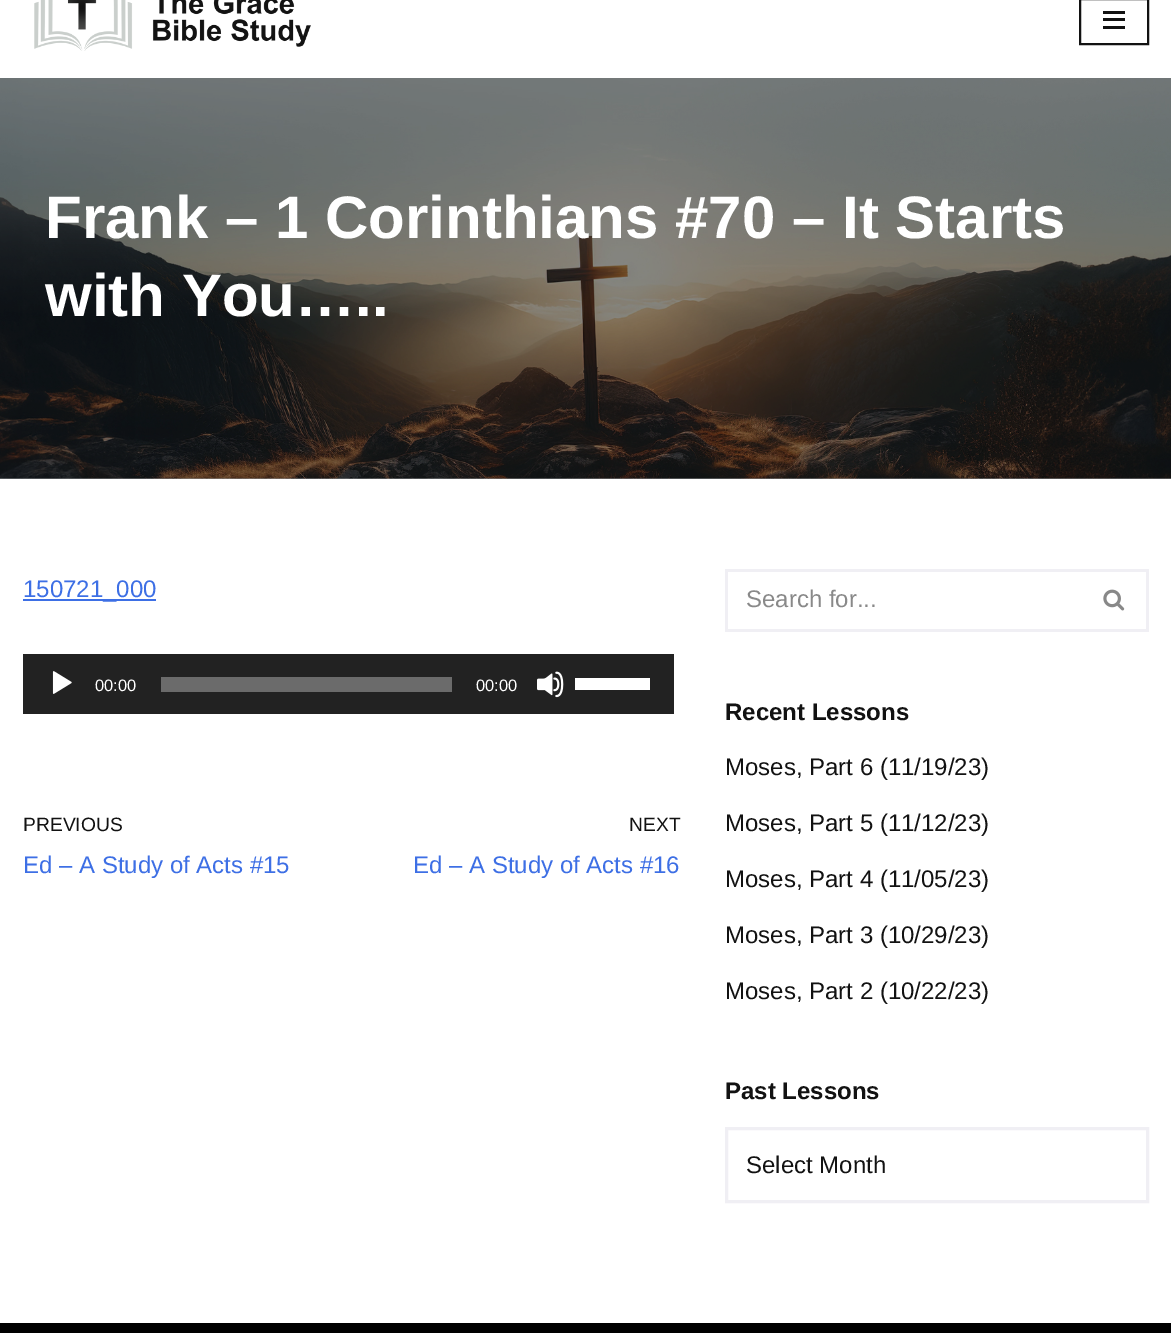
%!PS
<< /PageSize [1171 1333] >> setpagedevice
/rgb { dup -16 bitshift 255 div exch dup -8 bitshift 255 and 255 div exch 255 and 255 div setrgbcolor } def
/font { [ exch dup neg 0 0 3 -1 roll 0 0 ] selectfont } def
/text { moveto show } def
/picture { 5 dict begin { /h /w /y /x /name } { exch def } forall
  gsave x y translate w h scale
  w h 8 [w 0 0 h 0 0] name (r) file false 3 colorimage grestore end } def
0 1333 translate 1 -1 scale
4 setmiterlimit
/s1 { /LiberationSans-Bold 60 font 16#FFFFFF rgb } def
/s2 { /LiberationSans-Regular 24 font 16#3D6FE5 rgb } def
/s3 { /LiberationSans-Regular 16.5 font 16#FFFFFF rgb } def
/s4 { /LiberationSans-Regular 19.25 font 16#121212 rgb } def
/s5 { /LiberationSans-Regular 24 font 16#898989 rgb } def
/s6 { /LiberationSans-Bold 24 font 16#121212 rgb } def
/s7 { /LiberationSans-Regular 24 font 16#121212 rgb } def
16#FFFFFF rgb
0 0 1171 1333 rectfill
16#86898B rgb
0 478 1171 1 rectfill
(pic1.raw) 34 0 277 51 picture
16#121212 rgb
2 setlinewidth
1080 -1 68 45 rectstroke
1103 11 22 3 rectfill
1103 18 22 3 rectfill
1103 26 22 3 rectfill
(pic2.raw) 0 78 1171 401 picture
s1
(Frank – 1 Corinthians #70 – It Starts) 45 238 text
(with You…..) 45 316 text
16#3D6FE5 rgb
23 599 133 2 rectfill
s2
(150721_000) 23 597 text
16#222222 rgb
23 654 651 60 rectfill
(pic3.raw) 52 671 20 23 picture
s3
(00:00) 95 691 text
16#6B6B6B rgb
161 677 291 15 rectfill
s3
(00:00) 476 691 text
(pic4.raw) 537 671 27 27 picture
575 678 75 12 rectfill
s4
(PREVIOUS) 23 831 text
s2
(Ed – A Study of Acts #15) 23 873 text
s4
(NEXT) 629 831 text
s2
(Ed – A Study of Acts #16) 413 873 text
16#F0EFF4 rgb
725 569 424 3 rectfill
725 629 357 3 rectfill
725 569 3 63 rectfill
s5
(Search for...) 746 607 text
16#F0EFF4 rgb
1146 569 3 63 rectfill
1082 629 67 3 rectfill
(pic5.raw) 1103 589 22 22 picture
s6
(Recent Lessons) 725 720 text
s7
(Moses, Part 6 \(11/19/23\)) 725 775 text
(Moses, Part 5 \(11/12/23\)) 725 831 text
(Moses, Part 4 \(11/05/23\)) 725 887 text
(Moses, Part 3 \(10/29/23\)) 725 943 text
(Moses, Part 2 \(10/22/23\)) 725 999 text
s6
(Past Lessons) 725 1099 text
16#F0EFF4 rgb
3 setlinewidth
726.5 1128.5 421 73 rectstroke
s7
(Select Month) 746 1173 text
16#000000 rgb
0 1323 1171 10 rectfill
showpage
